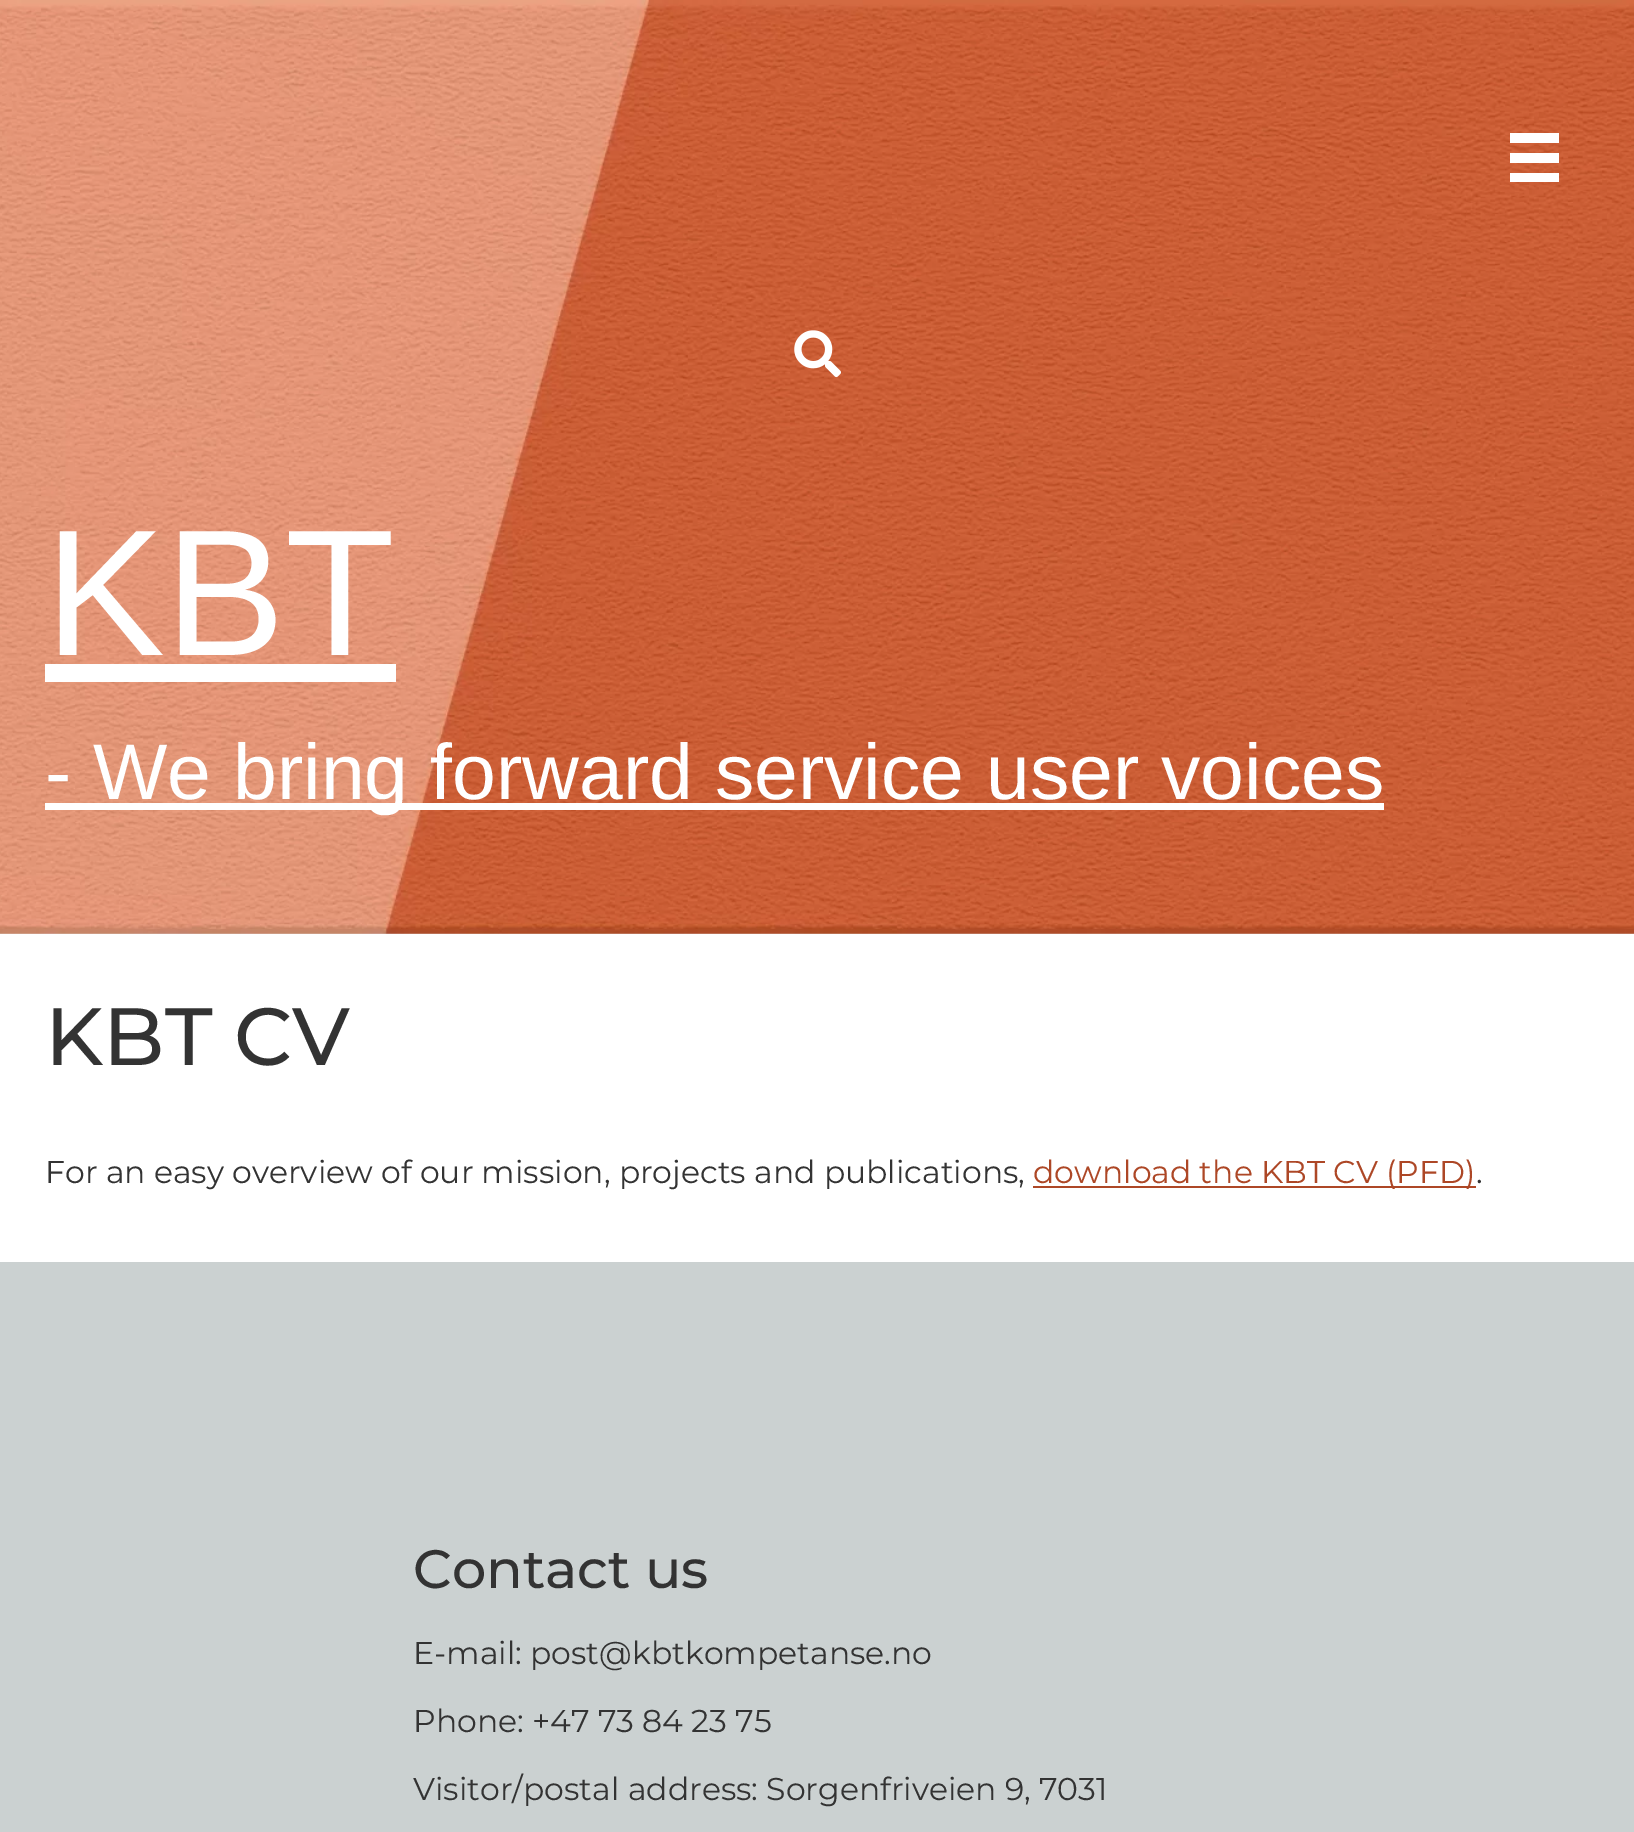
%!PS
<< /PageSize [1634 1832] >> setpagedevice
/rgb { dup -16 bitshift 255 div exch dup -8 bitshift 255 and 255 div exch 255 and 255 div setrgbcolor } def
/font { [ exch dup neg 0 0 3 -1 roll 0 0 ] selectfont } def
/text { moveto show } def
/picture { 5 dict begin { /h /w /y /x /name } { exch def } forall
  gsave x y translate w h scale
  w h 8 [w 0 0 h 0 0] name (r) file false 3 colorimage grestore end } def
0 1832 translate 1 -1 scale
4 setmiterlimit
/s1 { /LiberationSans-Regular 180 font 16#FFFFFF rgb } def
/s2 { /LiberationSans-Regular 78.75 font 16#FFFFFF rgb } def
/s3 { /Montserrat-Medium 81 font 16#333333 rgb } def
/s4 { /Montserrat-Regular 31.5 font 16#333333 rgb } def
/s5 { /Montserrat-Regular 31.5 font 16#AD4726 rgb } def
/s6 { /Montserrat-Medium 54 font 16#333333 rgb } def
16#FFFFFF rgb
0 0 1634 1832 rectfill
(pic1.raw) 0 0 1634 934 picture
1510 133 49 10 rectfill
1510 153 49 10 rectfill
1510 173 49 9 rectfill
(pic2.raw) 794 330 47 48 picture
s1
(KBT) 45 655 text
45 664 351 18 rectfill
45 803 1339 7 rectfill
s2
(- We bring forward service user voices) 45 799 text
s3
(KBT CV) 45 1065 text
s4
(For an easy overview of our mission, projects and publications,) 45 1183 text
16#AD4726 rgb
1033 1186 443 2 rectfill
(download the KBT CV \(PFD\)) 1033 1183 text
s4
(.) 1476 1183 text
16#CBD1D1 rgb
0 1262 1634 570 rectfill
s6
(Contact us) 413 1588 text
s4
(E-mail: post@kbtkompetanse.no) 413 1664 text
(Phone: +47 73 84 23 75) 413 1732 text
(Visitor/postal address: Sorgenfriveien 9, 7031) 413 1800 text
showpage
